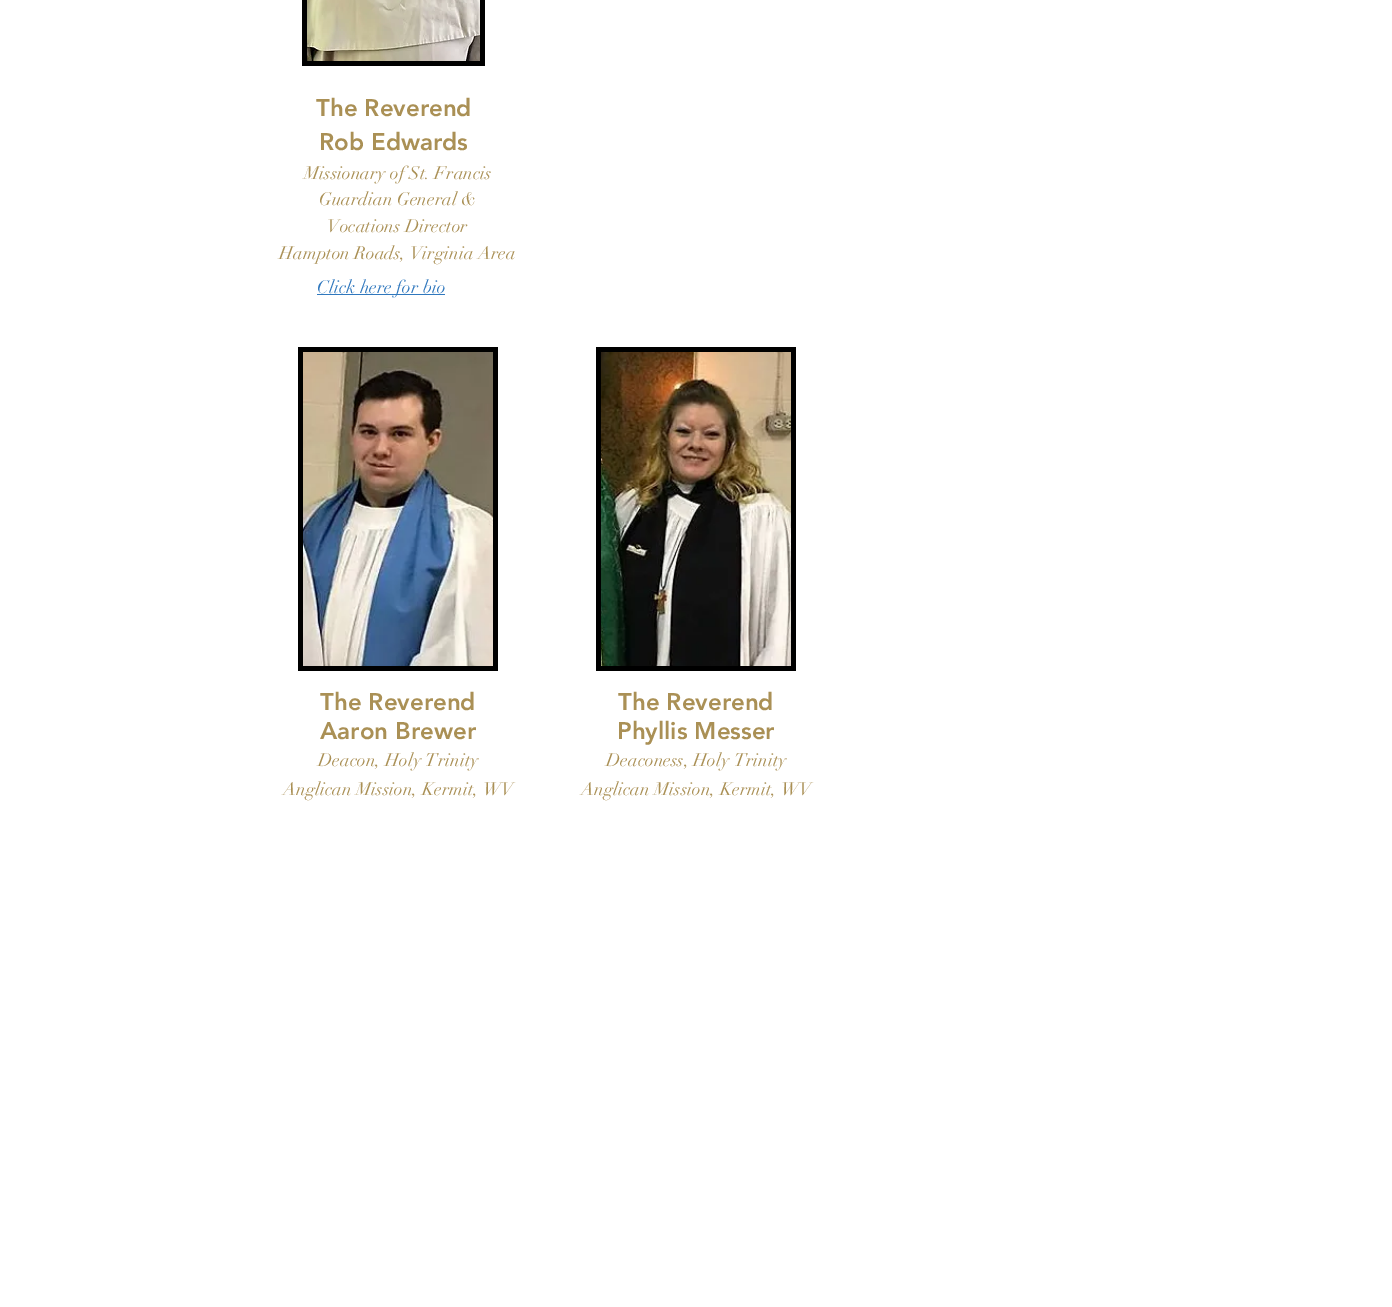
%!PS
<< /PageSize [1392 1307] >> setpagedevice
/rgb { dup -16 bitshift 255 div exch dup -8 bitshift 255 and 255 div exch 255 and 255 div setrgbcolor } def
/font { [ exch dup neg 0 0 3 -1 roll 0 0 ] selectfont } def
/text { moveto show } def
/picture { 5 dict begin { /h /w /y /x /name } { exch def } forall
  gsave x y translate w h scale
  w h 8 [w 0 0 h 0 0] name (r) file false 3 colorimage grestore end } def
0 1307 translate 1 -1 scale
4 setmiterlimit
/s1 { /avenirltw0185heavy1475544-Black 24 font 16#AA9055 rgb } def
/s2 { /didot-Regular 18 font 16#AA9055 rgb } def
/s3 { /didot-Regular 18 font 16#3078BE rgb } def
16#FFFFFF rgb
0 0 1392 1307 rectfill
16#000000 rgb
302 0 183 66 rectfill
(pic1.raw) 307 0 173 61 picture
s1
(The Reverend) 316 116 text
(Rob Edwards) 319 150 text
s2
(Missionary of St. Francis) 304 179 text
(Guardian General &) 319 205 text
(Vocations Director) 327 232 text
(Hampton Roads, Virginia Area) 279 259 text
16#3078BE rgb
317 294 128 1 rectfill
(Click here for bio) 317 293 text
16#000000 rgb
298 347 200 324 rectfill
(pic2.raw) 303 352 190 314 picture
596 347 200 324 rectfill
(pic3.raw) 601 352 190 314 picture
s1
(The Reverend) 320 710 text
(Aaron Brewer) 320 739 text
(The Reverend) 618 710 text
(Phyllis Messer) 617 739 text
s2
(Deacon, Holy Trinity) 318 766 text
(Anglican Mission, Kermit, WV) 283 795 text
(Deaconess, Holy Trinity) 606 766 text
(Anglican Mission, Kermit, WV) 581 795 text
showpage
